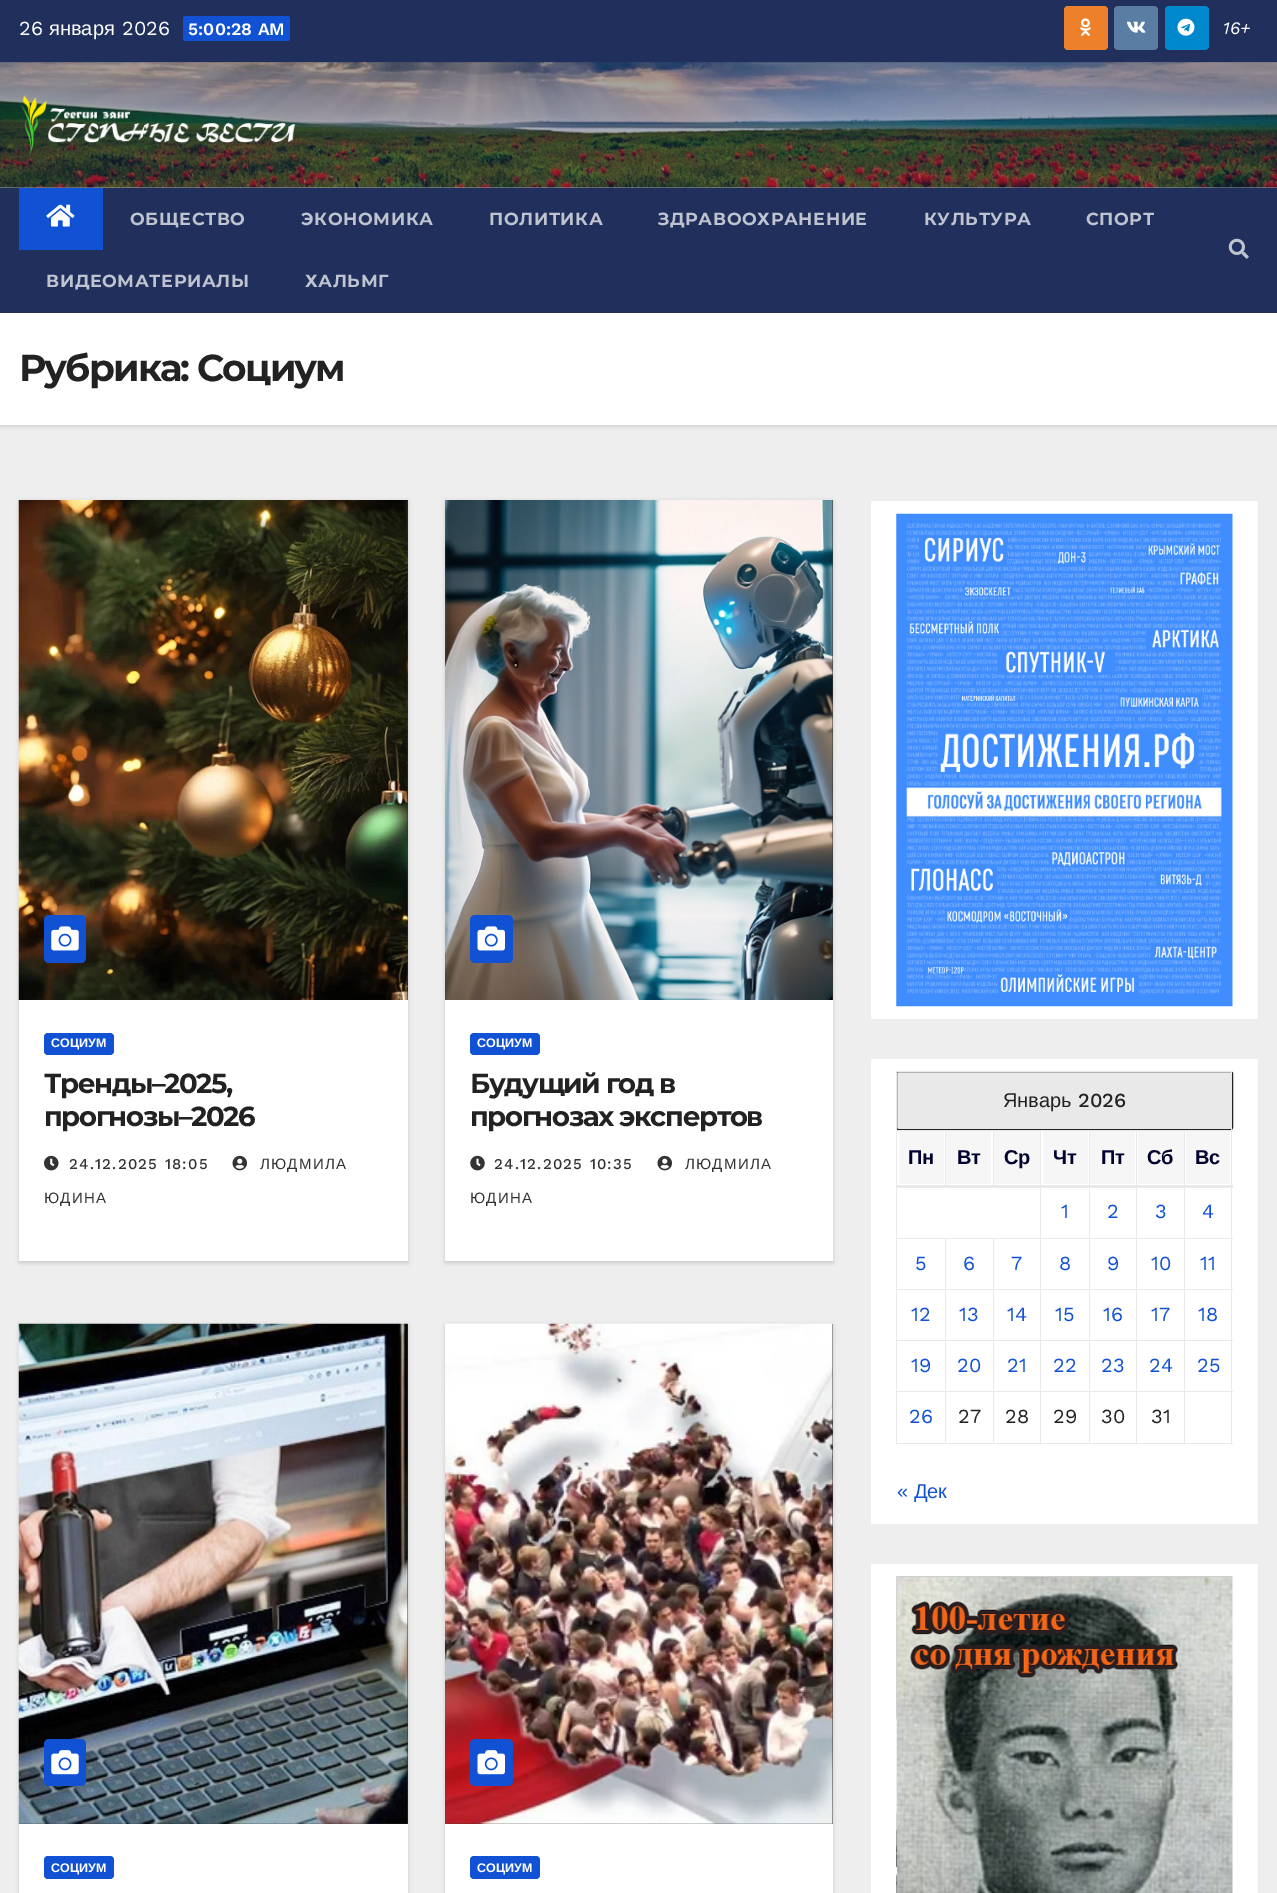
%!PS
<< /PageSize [1277 1893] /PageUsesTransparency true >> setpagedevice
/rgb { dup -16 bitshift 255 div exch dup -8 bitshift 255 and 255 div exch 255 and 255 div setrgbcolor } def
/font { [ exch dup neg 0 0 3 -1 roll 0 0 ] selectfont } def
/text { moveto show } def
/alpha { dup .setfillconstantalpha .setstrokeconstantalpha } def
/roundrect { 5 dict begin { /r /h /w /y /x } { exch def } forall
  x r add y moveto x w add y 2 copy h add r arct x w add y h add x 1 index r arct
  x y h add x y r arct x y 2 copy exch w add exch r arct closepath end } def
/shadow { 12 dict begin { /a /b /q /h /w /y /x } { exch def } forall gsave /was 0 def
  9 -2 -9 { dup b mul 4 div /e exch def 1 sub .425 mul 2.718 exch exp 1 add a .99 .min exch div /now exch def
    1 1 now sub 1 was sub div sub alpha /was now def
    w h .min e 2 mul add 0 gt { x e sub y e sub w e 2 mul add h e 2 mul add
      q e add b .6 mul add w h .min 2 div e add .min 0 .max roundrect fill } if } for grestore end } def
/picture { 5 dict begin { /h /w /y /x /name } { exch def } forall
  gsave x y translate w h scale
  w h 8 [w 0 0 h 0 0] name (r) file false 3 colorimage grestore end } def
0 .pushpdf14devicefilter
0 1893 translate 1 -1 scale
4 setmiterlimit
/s1 { /WorkSans-Regular 20 font 16#FFFFFF rgb } def
/s2 { /LiberationSans-Regular 20 font 16#FFFFFF rgb } def
/s3 { /WorkSans-SemiBold 17.5 font 16#FFFFFF rgb } def
/s4 { /WorkSans-Italic 17.5 font 16#FFFFFF rgb } def
/s5 { /LiberationSans-Bold 12.5 font 16#FFFFFF rgb } def
/s6 { /LiberationSans-Regular 20 font 16#222222 rgb } def
/s7 { /WorkSans-Medium 20 font 16#222222 rgb } def
/s8 { /LiberationSans-Bold 20 font 16#01012F rgb } def
/s9 { /WorkSans-Regular 20 font 16#1151D3 rgb } def
/s10 { /WorkSans-Regular 20 font 16#222222 rgb } def
/s11 { /LiberationSans-Regular 20 font 16#1151D3 rgb } def
16#EEEEEE rgb
0 0 1277 1893 rectfill
16#9CA2B3 rgb
0 187 1277 1 rectfill
16#202F5B rgb
0 0 1277 63 rectfill
s1
(26) 19 35 text
s2
(января) 49 35 text
s1
(2026) 122 35 text
16#1151D3 rgb
183 16 107 25 2.5 roundrect fill
s3
(5:00:28 AM) 188 35 text
16#ED812B rgb
1064 6 44 44 4 roundrect fill
(pic1.raw) 1080 18 11 18 picture
16#597DA3 rgb
1114 6 44 44 4 roundrect fill
(pic2.raw) 1126 21 20 12 picture
16#0088CC rgb
1165 6 44 44 4 roundrect fill
(pic3.raw) 1177 18 18 18 picture
s4
(16+) 1223 34 text
(pic4.raw) 0 62 1277 126 picture
(pic5.raw) 20 95 276 60 picture
16#000000 rgb
0 314 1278 112 0 2 0.15 shadow
16#202F5B rgb
0 188 1277 125 rectfill
16#1151D3 rgb
19 188 84 62 rectfill
(pic6.raw) 46 204 29 23 picture
/Montserrat-Bold 17.5 font
16#BEC3CF rgb
130 225 moveto 0.6 0 (ОБЩЕСТВО) ashow
301 225 moveto 0.6 0 (ЭКОНОМИКА) ashow
489 225 moveto 0.6 0 (ПОЛИТИКА) ashow
658 225 moveto 0.6 0 (ЗДРАВООХРАНЕНИЕ) ashow
924 225 moveto 0.6 0 (КУЛЬТУРА) ashow
1086 225 moveto 0.6 0 (СПОРТ) ashow
46 287 moveto 0.6 0 (ВИДЕОМАТЕРИАЛЫ) ashow
305 287 moveto 0.6 0 (ХАЛЬМГ) ashow
(pic7.raw) 1228 238 21 21 picture
16#FFFFFF rgb
0 313 1277 112 rectfill
/Montserrat-Bold 37.5 font
16#222222 rgb
19 381 moveto -1.9 0 (Рубрика: Социум) ashow
16#000000 rgb
19 501 389 762 0 2 0.15 shadow
16#FFFFFF rgb
19 1000 389 261 rectfill
16#333333 rgb
407 500 1 500 rectfill
(pic8.raw) 18 500 390 500 picture
16#1151D3 rgb
44 915 42 48 5 roundrect fill
(pic9.raw) 51 926 28 25 picture
44 1033 70 22 4 roundrect fill
s5
(СОЦИУМ) 51 1047 text
/Montserrat-Bold 27.5 font
16#222222 rgb
44 1093 moveto -1.4 0 (Тренды–2025,) ashow
44 1126 moveto -1.4 0 (прогнозы–2026) ashow
(pic10.raw) 232 1155 15 16 picture
/LiberationSans-Regular 15 font
16#333333 rgb
260 1169 moveto 1.25 0 (ЛЮДМИЛА) ashow
44 1203 moveto 1.25 0 (ЮДИНА) ashow
(pic11.raw) 44 1155 15 16 picture
/WorkSans-Medium 15 font
69 1169 moveto 1.25 0 (24.12.2025 18:05) ashow
16#000000 rgb
445 501 388 762 0 2 0.15 shadow
16#FFFFFF rgb
445 1000 388 261 rectfill
16#333333 rgb
832 500 1 500 rectfill
(pic12.raw) 445 500 388 500 picture
16#1151D3 rgb
470 915 43 48 5 roundrect fill
(pic13.raw) 477 926 28 25 picture
470 1033 70 22 4 roundrect fill
s5
(СОЦИУМ) 477 1047 text
/Montserrat-Bold 27.5 font
16#222222 rgb
470 1093 moveto -1.4 0 (Будущий год в) ashow
470 1126 moveto -1.4 0 (прогнозах экспертов) ashow
(pic10.raw) 657 1155 15 16 picture
/LiberationSans-Regular 15 font
16#333333 rgb
685 1169 moveto 1.25 0 (ЛЮДМИЛА) ashow
470 1203 moveto 1.25 0 (ЮДИНА) ashow
(pic14.raw) 470 1155 15 16 picture
/WorkSans-Medium 15 font
494 1169 moveto 1.25 0 (24.12.2025 10:35) ashow
16#000000 rgb
19 1325 389 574 0 2 0.15 shadow
16#FFFFFF rgb
19 1824 389 69 rectfill
16#333333 rgb
19 1324 389 500 rectfill
(pic15.raw) 18 1323 390 501 picture
16#1151D3 rgb
44 1739 42 47 5 roundrect fill
(pic16.raw) 51 1750 28 25 picture
44 1856 70 23 4 roundrect fill
s5
(СОЦИУМ) 51 1872 text
16#000000 rgb
445 1325 388 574 0 2 0.15 shadow
16#FFFFFF rgb
445 1824 388 69 rectfill
16#333333 rgb
445 1324 388 500 rectfill
(pic17.raw) 445 1323 388 501 picture
16#1151D3 rgb
470 1739 43 47 5 roundrect fill
(pic18.raw) 477 1750 28 25 picture
470 1856 70 23 4 roundrect fill
s5
(СОЦИУМ) 477 1872 text
871 501 387 518 rectfill
(pic19.raw) 896 513 337 494 picture
871 1059 387 465 rectfill
16#E9E9E9 rgb
896.5 1071.5 336 58 2 roundrect gsave fill grestore
16#222222 rgb
stroke
16#E9E9E9 rgb
896 1071 337 1 rectfill
1231 1071 1 373 rectfill
896 1443 337 1 rectfill
896 1071 1 373 rectfill
s6
(Январь) 1003 1107 text
s7
(2026) 1078 1107 text
16#F6F6F6 rgb
899 1131 45 53 rectfill
16#E9E9E9 rgb
1184 1130 49 1 rectfill
1184 1238 49 1 rectfill
1184 1289 49 1 rectfill
1184 1340 49 1 rectfill
1184 1391 49 1 rectfill
1184 1391 1 53 rectfill
1136 1391 49 1 rectfill
1184 1340 1 53 rectfill
1136 1340 49 1 rectfill
1184 1289 1 52 rectfill
1136 1289 49 1 rectfill
1184 1238 1 52 rectfill
1136 1238 49 1 rectfill
1184 1185 1 54 rectfill
1184 1130 1 56 rectfill
1136 1130 49 1 rectfill
1136 1391 1 53 rectfill
1089 1391 49 1 rectfill
1136 1340 1 53 rectfill
1089 1340 49 1 rectfill
1136 1289 1 52 rectfill
1089 1289 49 1 rectfill
1136 1238 1 52 rectfill
1089 1238 49 1 rectfill
1136 1185 1 54 rectfill
1136 1130 1 56 rectfill
1089 1130 49 1 rectfill
1089 1391 1 53 rectfill
1040 1391 50 1 rectfill
1089 1340 1 53 rectfill
1040 1340 50 1 rectfill
1089 1289 1 52 rectfill
1040 1289 50 1 rectfill
1089 1238 1 52 rectfill
1040 1238 50 1 rectfill
1089 1185 1 54 rectfill
1089 1130 1 56 rectfill
1040 1130 50 1 rectfill
1040 1391 1 53 rectfill
993 1391 48 1 rectfill
1040 1340 1 53 rectfill
993 1340 48 1 rectfill
1040 1289 1 52 rectfill
993 1289 48 1 rectfill
1040 1238 1 52 rectfill
993 1238 48 1 rectfill
1040 1185 1 54 rectfill
1040 1130 1 56 rectfill
993 1130 48 1 rectfill
993 1130 1 56 rectfill
945 1130 49 1 rectfill
945 1130 1 56 rectfill
896 1130 50 1 rectfill
s8
(Пн) 908 1164 text
16#F6F6F6 rgb
946 1131 45 53 rectfill
s8
(Вт) 957 1164 text
16#F6F6F6 rgb
994 1131 46 53 rectfill
s8
(Ср) 1004 1164 text
16#F6F6F6 rgb
1043 1131 45 53 rectfill
s8
(Чт) 1053 1164 text
16#F6F6F6 rgb
1090 1131 45 53 rectfill
s8
(Пт) 1101 1164 text
16#F6F6F6 rgb
1138 1131 46 53 rectfill
s8
(Сб) 1147 1164 text
16#F6F6F6 rgb
1186 1131 44 53 rectfill
16#E9E9E9 rgb
896 1185 337 3 rectfill
s8
(Вс) 1195 1164 text
s9
(1) 1061 1218 text
(2) 1107 1218 text
(3) 1155 1218 text
(4) 1202 1218 text
16#E9E9E9 rgb
993 1391 1 53 rectfill
945 1391 49 1 rectfill
993 1340 1 53 rectfill
945 1340 49 1 rectfill
993 1289 1 52 rectfill
945 1289 49 1 rectfill
993 1238 1 52 rectfill
945 1238 49 1 rectfill
945 1391 1 53 rectfill
896 1391 50 1 rectfill
945 1340 1 53 rectfill
896 1340 50 1 rectfill
945 1289 1 52 rectfill
896 1289 50 1 rectfill
945 1238 1 52 rectfill
896 1238 50 1 rectfill
s9
(5) 915 1270 text
(6) 963 1270 text
(7) 1011 1270 text
(8) 1059 1270 text
(9) 1107 1270 text
(10) 1151 1270 text
(11) 1200 1270 text
(12) 911 1321 text
(13) 959 1321 text
(14) 1007 1321 text
(15) 1055 1321 text
(16) 1103 1321 text
(17) 1151 1321 text
(18) 1198 1321 text
(19) 911 1372 text
(20) 957 1372 text
(21) 1007 1372 text
(22) 1053 1372 text
(23) 1101 1372 text
(24) 1149 1372 text
(25) 1197 1372 text
(26) 909 1423 text
s10
(27) 958 1423 text
(28) 1005 1423 text
(29) 1053 1423 text
(30) 1101 1423 text
(31) 1151 1423 text
s11
(« Дек) 897 1498 text
16#FFFFFF rgb
871 1564 387 329 rectfill
(pic20.raw) 896 1576 337 317 picture
.poppdf14devicefilter showpage
